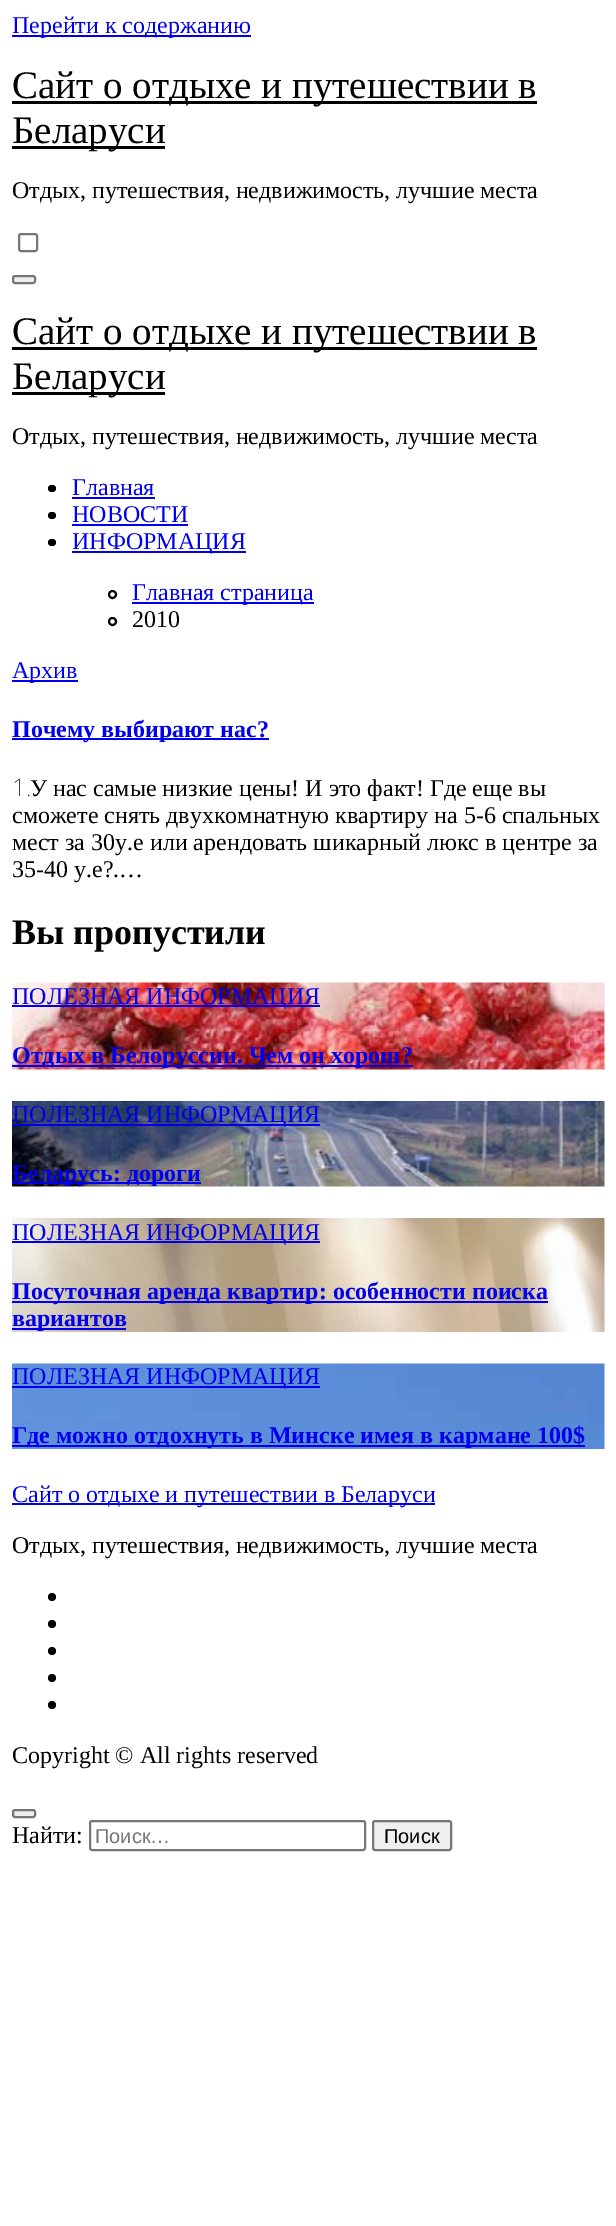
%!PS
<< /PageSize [616 2226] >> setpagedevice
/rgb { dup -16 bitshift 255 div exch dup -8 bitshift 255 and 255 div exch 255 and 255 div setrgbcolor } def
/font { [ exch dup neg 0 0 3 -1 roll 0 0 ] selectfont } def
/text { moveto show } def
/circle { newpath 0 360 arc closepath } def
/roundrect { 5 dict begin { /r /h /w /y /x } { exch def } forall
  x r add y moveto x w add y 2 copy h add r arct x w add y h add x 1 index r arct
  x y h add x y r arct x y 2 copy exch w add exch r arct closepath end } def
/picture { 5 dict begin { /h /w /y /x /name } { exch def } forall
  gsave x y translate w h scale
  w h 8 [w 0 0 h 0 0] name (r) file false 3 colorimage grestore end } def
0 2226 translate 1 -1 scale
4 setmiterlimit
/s1 { /LiberationSerif-Regular 24 font 16#0000EE rgb } def
/s2 { /LiberationSerif-Regular 39 font 16#000000 rgb } def
/s3 { /LiberationSerif-Regular 24 font 16#000000 rgb } def
/s4 { /LiberationSerif-Bold 24 font 16#0000EE rgb } def
/s5 { /NotoSans-Thin 24 font 16#000000 rgb } def
/s6 { /LiberationSerif-Bold 36 font 16#000000 rgb } def
/s7 { /LiberationSans-Regular 20 font 16#757575 rgb } def
/s8 { /LiberationSans-Regular 20 font 16#000000 rgb } def
16#FFFFFF rgb
0 0 616 2226 rectfill
16#0000EE rgb
12 35 239 2 rectfill
s1
(Перейти к содержанию) 12 33 text
16#000000 rgb
12 101 525 3 rectfill
s2
(Сайт о отдыхе и путешествии в) 12 98 text
12 146 153 3 rectfill
(Беларуси) 12 143 text
s3
(Отдых, путешествия, недвижимость, лучшие места) 12 198 text
16#767676 rgb
2 setlinewidth
19 234 18 17 2 roundrect stroke
16#EFEFEF rgb
13 276 22 7 2 roundrect gsave fill grestore
16#767676 rgb
stroke
16#000000 rgb
12 347 525 3 rectfill
s2
(Сайт о отдыхе и путешествии в) 12 344 text
12 392 153 3 rectfill
(Беларуси) 12 389 text
s3
(Отдых, путешествия, недвижимость, лучшие места) 12 444 text
48 485 8 7 3.5 roundrect fill
s1
(Главная) 72 495 text
72 497 83 2 rectfill
16#000000 rgb
48 512 8 7 3.5 roundrect fill
s1
(НОВОСТИ) 72 522 text
72 524 116 2 rectfill
16#000000 rgb
48 539 8 7 3.5 roundrect fill
16#0000EE rgb
72 551 174 2 rectfill
(ИНФОРМАЦИЯ) 72 549 text
16#000000 rgb
112.5 594.5 3.5 circle stroke
16#0000EE rgb
132 602 182 2 rectfill
(Главная страница) 132 600 text
16#000000 rgb
112.5 621.5 3.5 circle stroke
(2010) 132 627 text
16#0000EE rgb
12 680 66 2 rectfill
(Архив) 12 678 text
12 738 257 2 rectfill
s4
(Почему выбирают нас?) 12 737 text
s5
(1.) 12 796 text
s3
(У нас самые низкие цены! И это факт! Где еще вы) 30 796 text
(сможете снять двухкомнатную квартиру на 5-6 спальных) 12 823 text
(мест за 30у.е или арендовать шикарный люкс в центре за) 12 850 text
(35-40 у.е?.…) 12 877 text
s6
(Вы пропустили) 12 944 text
(pic1.raw) 12 982 593 88 picture
16#0000EE rgb
12 1005 308 2 rectfill
s1
(ПОЛЕЗНАЯ ИНФОРМАЦИЯ) 12 1004 text
12 1065 401 2 rectfill
s4
(Отдых в Белоруссии. Чем он хорош?) 12 1063 text
(pic2.raw) 12 1101 593 86 picture
12 1124 308 2 rectfill
s1
(ПОЛЕЗНАЯ ИНФОРМАЦИЯ) 12 1122 text
12 1182 189 2 rectfill
s4
(Беларусь: дороги) 12 1181 text
(pic3.raw) 12 1218 593 114 picture
12 1241 308 2 rectfill
s1
(ПОЛЕЗНАЯ ИНФОРМАЦИЯ) 12 1240 text
12 1301 536 2 rectfill
s4
(Посуточная аренда квартир: особенности поиска) 12 1299 text
12 1328 114 2 rectfill
(вариантов) 12 1326 text
(pic4.raw) 12 1363 593 86 picture
12 1386 308 2 rectfill
s1
(ПОЛЕЗНАЯ ИНФОРМАЦИЯ) 12 1384 text
12 1445 573 2 rectfill
s4
(Где можно отдохнуть в Минске имея в кармане 100$) 12 1443 text
12 1503 423 2 rectfill
s1
(Сайт о отдыхе и путешествии в Беларуси) 12 1502 text
s3
(Отдых, путешествия, недвижимость, лучшие места) 12 1553 text
52 1597 4 circle fill
52 1624 4 circle fill
52 1651 4 circle fill
52 1678 4 circle fill
52 1705 4 circle fill
(Copyright © All rights reserved) 12 1763 text
16#EFEFEF rgb
13 1810 22 7 2 roundrect gsave fill grestore
16#767676 rgb
stroke
s3
(Найти:) 12 1843 text
16#767676 rgb
90 1821 275 29 2 roundrect stroke
s7
(Поиск…) 95 1843 text
16#EFEFEF rgb
373 1821 78 29 2 roundrect gsave fill grestore
16#767676 rgb
stroke
s8
(Поиск) 384 1843 text
showpage
